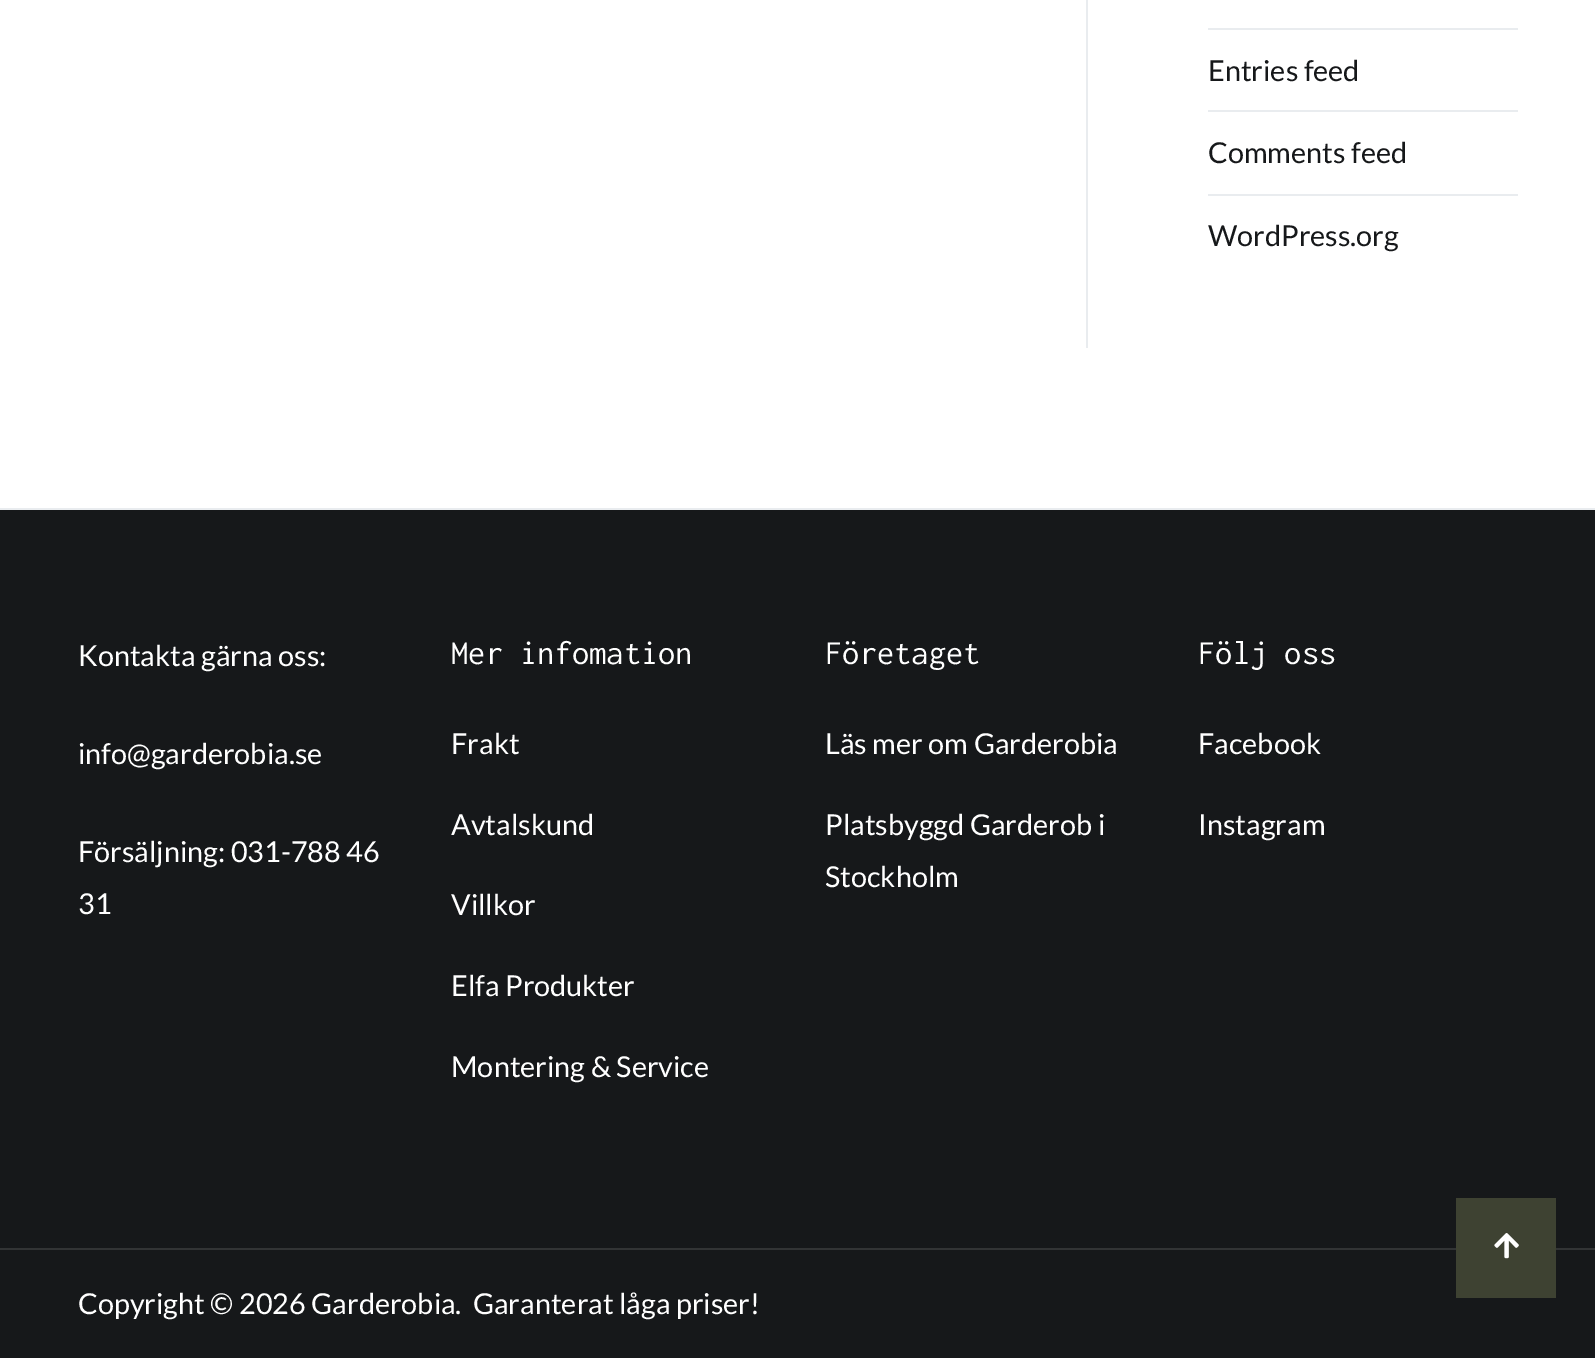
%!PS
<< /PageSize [1595 1358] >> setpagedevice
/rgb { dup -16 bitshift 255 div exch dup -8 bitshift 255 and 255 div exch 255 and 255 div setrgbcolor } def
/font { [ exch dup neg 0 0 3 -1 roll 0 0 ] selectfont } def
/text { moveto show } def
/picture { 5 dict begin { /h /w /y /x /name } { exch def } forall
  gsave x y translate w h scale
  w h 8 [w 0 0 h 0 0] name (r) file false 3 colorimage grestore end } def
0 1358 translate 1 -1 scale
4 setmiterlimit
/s1 { /Lato-Regular 28.8 font 16#16181A rgb } def
/s2 { /Lato-Regular 28.8 font 16#FFFFFF rgb } def
/s3 { /Inconsolata-Regular 34.5 font 16#FFFFFF rgb } def
16#FFFFFF rgb
0 0 1595 1358 rectfill
16#E9ECEF rgb
1086 0 2 348 rectfill
1208 28 310 2 rectfill
1208 110 310 2 rectfill
s1
(Entries feed) 1208 81 text
16#E9ECEF rgb
1208 194 310 2 rectfill
s1
(Comments feed) 1208 163 text
(WordPress.org) 1208 246 text
0 510 1595 738 rectfill
16#E9ECEF rgb
0 508 1595 2 rectfill
s2
(Kontakta gärna oss:) 78 666 text
(info@garderobia.se) 78 764 text
(Försäljning: 031-788 46) 78 862 text
(31) 78 914 text
s3
(Mer infomation) 451 664 text
s2
(Frakt) 451 754 text
(Avtalskund) 451 835 text
(Villkor) 451 915 text
(Elfa Produkter) 451 996 text
(Montering & Service) 451 1077 text
s3
(Företaget) 825 664 text
s2
(Läs mer om Garderobia) 825 754 text
(Platsbyggd Garderob i) 825 835 text
(Stockholm) 825 887 text
s3
(Följ oss) 1198 664 text
s2
(Facebook) 1198 754 text
(Instagram) 1198 835 text
16#16181A rgb
0 1250 1595 108 rectfill
16#323435 rgb
0 1248 1595 2 rectfill
s2
(Copyright © 2026 Garderobia.  Garanterat låga priser!) 78 1314 text
16#3E4232 rgb
1456 1198 100 100 rectfill
(pic1.raw) 1494 1233 25 26 picture
showpage
